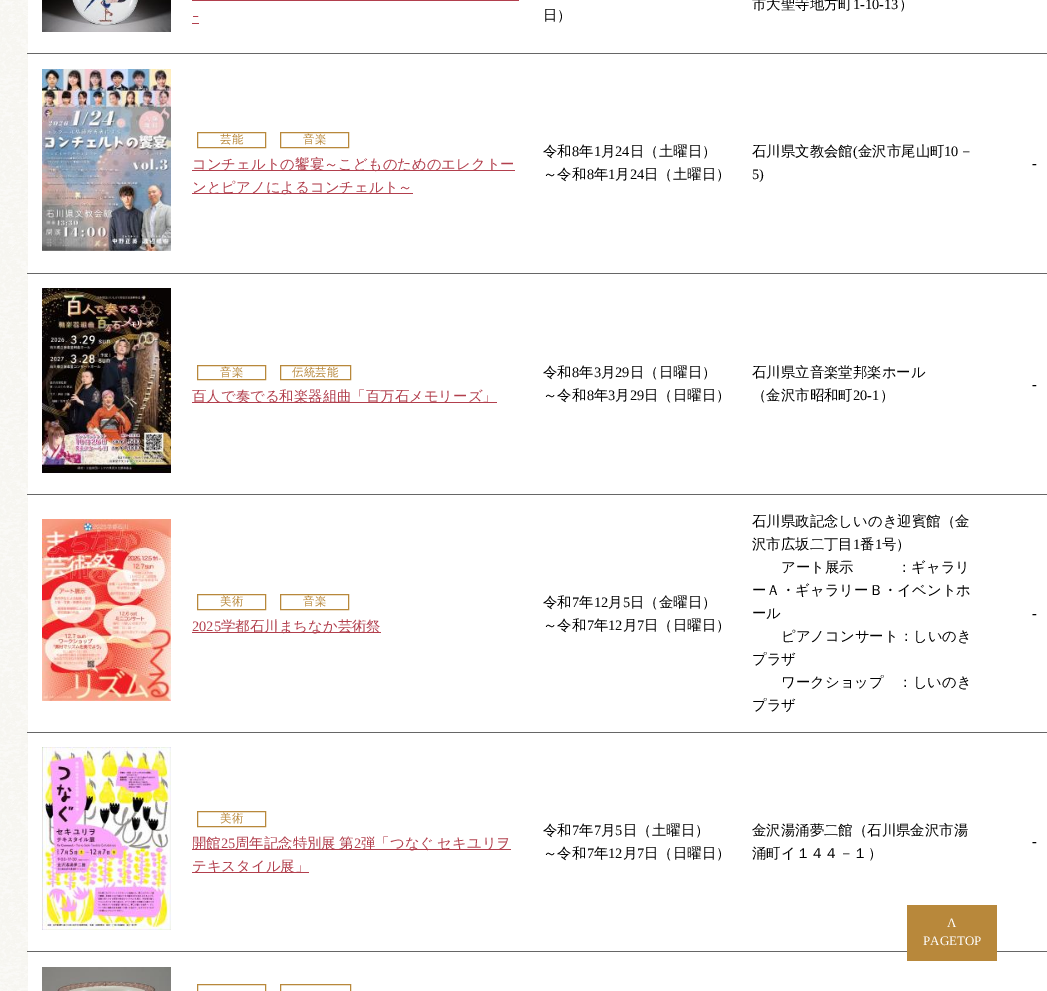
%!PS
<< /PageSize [1047 991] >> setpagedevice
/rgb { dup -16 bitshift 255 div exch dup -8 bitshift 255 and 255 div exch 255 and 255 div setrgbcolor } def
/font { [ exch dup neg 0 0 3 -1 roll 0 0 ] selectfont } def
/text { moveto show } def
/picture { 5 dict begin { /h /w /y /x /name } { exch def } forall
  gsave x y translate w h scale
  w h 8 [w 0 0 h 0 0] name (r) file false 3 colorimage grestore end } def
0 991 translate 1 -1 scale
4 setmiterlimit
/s1 { /WenQuanYiZenHei-Medium 14.4 font 16#000000 rgb } def
/s2 { /LiberationSerif-Regular 14.4 font 16#000000 rgb } def
/s3 { /IPAPGothic-Regular 14.4 font 16#B23F4D rgb } def
/s4 { /WenQuanYiZenHei-Medium 11.5 font 16#B8883B rgb } def
/s5 { /WenQuanYiZenHei-Medium 14.4 font 16#B23F4D rgb } def
/s6 { /LiberationSerif-Regular 14.4 font 16#B23F4D rgb } def
/s7 { /LiberationSerif-Regular 13 font 16#FFFFFF rgb } def
16#FFFFFF rgb
0 0 1047 991 rectfill
(pic1.raw) 0 0 28 991 picture
16#666666 rgb
27 53 1020 1 rectfill
(pic2.raw) 42 0 129 32 picture
s1
(市大聖寺地方町) 752 9 text
s2
(1-10-13) 853 9 text
s1
(）) 899 9 text
s3
(ｰ) 192 22 text
192 0 327 1 rectfill
192 23 7 1 rectfill
s1
(日）) 543 20 text
16#666666 rgb
27 273 1020 1 rectfill
(pic3.raw) 42 69 129 182 picture
16#B8883B rgb
197.5 132.5 68 15 rectstroke
s4
(芸能) 220 143 text
280.5 132.5 68 15 rectstroke
(音楽) 303 143 text
16#B23F4D rgb
192 170 323 1 rectfill
s5
(コンチェルトの饗宴～こどものためのエレクトー) 192 169 text
192 193 221 1 rectfill
(ンとピアノによるコンチェルト～) 192 192 text
s1
(令和) 543 156 text
s2
(8) 572 156 text
s1
(年) 579 156 text
s2
(1) 594 156 text
s1
(月) 601 156 text
s2
(24) 615 156 text
s1
(日（土曜日）) 630 156 text
(～令和) 543 179 text
s2
(8) 587 179 text
s1
(年) 594 179 text
s2
(1) 608 179 text
s1
(月) 615 179 text
s2
(24) 630 179 text
s1
(日（土曜日）) 644 179 text
(石川県文教会館) 752 156 text
s2
(\() 853 156 text
s1
(金沢市尾山町) 858 156 text
s2
(10) 944 156 text
s1
(－) 959 156 text
s2
(5\)) 752 179 text
(-) 1032 168 text
16#666666 rgb
27 494 1020 1 rectfill
(pic4.raw) 42 288 129 185 picture
16#B8883B rgb
197.5 365.5 68 14 rectstroke
s4
(音楽) 220 376 text
280.5 365.5 70 14 rectstroke
(伝統芸能) 292 376 text
16#B23F4D rgb
192 402 305 1 rectfill
s5
(百人で奏でる和楽器組曲「百万石メモリーズ」) 192 401 text
s1
(令和) 543 377 text
s2
(8) 572 377 text
s1
(年) 579 377 text
s2
(3) 594 377 text
s1
(月) 601 377 text
s2
(29) 615 377 text
s1
(日（日曜日）) 630 377 text
(～令和) 543 400 text
s2
(8) 587 400 text
s1
(年) 594 400 text
s2
(3) 608 400 text
s1
(月) 615 400 text
s2
(29) 630 400 text
s1
(日（日曜日）) 644 400 text
(石川県立音楽堂邦楽ホール) 752 377 text
(（金沢市昭和町) 752 400 text
s2
(20-1) 853 400 text
s1
(）) 880 400 text
s2
(-) 1032 389 text
16#666666 rgb
27 732 1020 1 rectfill
(pic5.raw) 42 519 129 182 picture
16#B8883B rgb
197.5 594.5 68 15 rectstroke
s4
(美術) 220 605 text
280.5 594.5 68 15 rectstroke
(音楽) 303 605 text
s6
(2025) 192 631 text
192 632 189 1 rectfill
s5
(学都石川まちなか芸術祭) 221 631 text
s1
(令和) 543 607 text
s2
(7) 572 607 text
s1
(年) 579 607 text
s2
(12) 594 607 text
s1
(月) 608 607 text
s2
(5) 623 607 text
s1
(日（金曜日）) 630 607 text
(～令和) 543 630 text
s2
(7) 587 630 text
s1
(年) 594 630 text
s2
(12) 608 630 text
s1
(月) 623 630 text
s2
(7) 637 630 text
s1
(日（日曜日）) 644 630 text
(石川県政記念しいのき迎賓館（金) 752 526 text
(沢市広坂二丁目) 752 549 text
s2
(1) 853 549 text
s1
(番) 860 549 text
s2
(1) 875 549 text
s1
(号）) 882 549 text
(アート展示　　　：ギャラリ) 781 572 text
(ーＡ・ギャラリーＢ・イベントホ) 752 595 text
(ール) 752 618 text
(ピアノコンサート：しいのき) 781 641 text
(プラザ) 752 664 text
(ワークショップ　：しいのき) 781 687 text
(プラザ) 752 710 text
s2
(-) 1032 618 text
16#666666 rgb
27 951 1020 1 rectfill
(pic6.raw) 42 747 129 183 picture
16#B8883B rgb
197.5 811.5 68 15 rectstroke
s4
(美術) 220 822 text
16#B23F4D rgb
192 849 319 1 rectfill
s5
(開館) 192 848 text
s6
(25) 221 848 text
/WenQuanYiZenHei-Medium 14.4 font
235 848 moveto -1 0 32 (周年記念特別展 第) widthshow
s6
(2) 354 848 text
/WenQuanYiZenHei-Medium 14.4 font
361 848 moveto -1 0 32 (弾「つなぐ セキユリヲ) widthshow
192 872 117 1 rectfill
(テキスタイル展」) 192 871 text
s1
(令和) 543 835 text
s2
(7) 572 835 text
s1
(年) 579 835 text
s2
(7) 594 835 text
s1
(月) 601 835 text
s2
(5) 615 835 text
s1
(日（土曜日）) 623 835 text
(～令和) 543 858 text
s2
(7) 587 858 text
s1
(年) 594 858 text
s2
(12) 608 858 text
s1
(月) 623 858 text
s2
(7) 637 858 text
s1
(日（日曜日）) 644 858 text
(金沢湯涌夢二館（石川県金沢市湯) 752 835 text
(涌町イ１４４－１）) 752 858 text
s2
(-) 1032 846 text
(pic7.raw) 42 967 129 24 picture
16#B8883B rgb
197.5 984.5 68 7 rectstroke
280.5 984.5 70 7 rectstroke
907 905 90 56 rectfill
s7
(Λ) 947 927 text
(PAGETOP) 923 945 text
showpage
